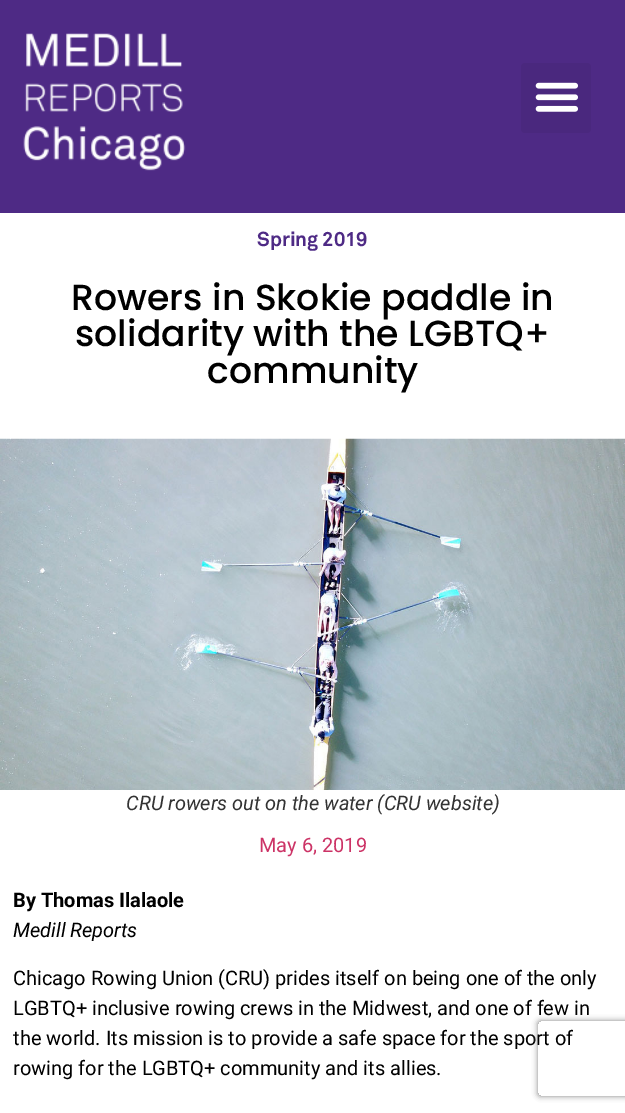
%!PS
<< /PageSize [625 1113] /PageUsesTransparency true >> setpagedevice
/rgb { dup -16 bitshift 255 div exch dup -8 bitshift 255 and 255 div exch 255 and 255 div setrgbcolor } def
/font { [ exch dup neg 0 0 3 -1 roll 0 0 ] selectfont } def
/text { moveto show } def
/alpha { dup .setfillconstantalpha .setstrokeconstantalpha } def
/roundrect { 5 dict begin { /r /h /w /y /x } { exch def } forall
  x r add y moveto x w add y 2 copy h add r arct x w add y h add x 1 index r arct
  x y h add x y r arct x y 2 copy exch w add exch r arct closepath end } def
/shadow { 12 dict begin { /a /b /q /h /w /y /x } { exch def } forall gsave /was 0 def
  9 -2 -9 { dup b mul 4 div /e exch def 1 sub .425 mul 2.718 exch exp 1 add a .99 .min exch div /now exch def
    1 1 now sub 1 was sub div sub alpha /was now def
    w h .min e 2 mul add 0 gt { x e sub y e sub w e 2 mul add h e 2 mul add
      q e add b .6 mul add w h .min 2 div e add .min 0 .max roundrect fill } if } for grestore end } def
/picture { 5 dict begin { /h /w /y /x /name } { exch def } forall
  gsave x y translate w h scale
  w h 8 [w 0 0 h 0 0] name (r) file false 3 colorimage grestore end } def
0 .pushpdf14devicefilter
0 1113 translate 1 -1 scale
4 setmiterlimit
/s1 { /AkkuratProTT-Bold 20 font 16#4E2A85 rgb } def
/s2 { /Poppins-Medium 36.25 font 16#000000 rgb } def
/s3 { /Roboto-Italic 20 font 16#333333 rgb } def
/s4 { /Roboto-Regular 20 font 16#CC3366 rgb } def
/s5 { /Roboto-Bold 20 font 16#000000 rgb } def
/s6 { /Roboto-Italic 20 font 16#000000 rgb } def
/s7 { /Roboto-Regular 20 font 16#000000 rgb } def
16#FFFFFF rgb
0 0 625 1113 rectfill
16#4E2A85 rgb
0 0 625 213 rectfill
(pic1.raw) 23 33 163 138 picture
16#4A287E rgb
521 63 70 70 4 roundrect fill
(pic2.raw) 535 82 43 30 picture
s1
(Spring 2019) 257 246 text
s2
(Rowers in Skokie paddle in) 71 310 text
(solidarity with the LGBTQ+) 75 346 text
(community) 207 383 text
(pic3.raw) 0 438 625 352 picture
s3
(CRU rowers out on the water \(CRU website\)) 126 810 text
s4
(May 6, 2019) 259 852 text
s5
(By Thomas Ilalaole) 13 907 text
s6
(Medill Reports) 13 937 text
s7
(Chicago Rowing Union \(CRU\) prides itself on being one of the only) 13 985 text
(LGBTQ+ inclusive rowing crews in the Midwest, and one of few in) 13 1015 text
(the world. Its mission is to provide a safe space for the sport of) 13 1045 text
(rowing for the LGBTQ+ community and its allies.) 13 1075 text
gsave
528 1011 moveto 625 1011 lineto 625 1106 lineto 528 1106 lineto closepath 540.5 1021 moveto 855.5 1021 lineto 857 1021 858 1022 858 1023.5 curveto 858 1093.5 lineto 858 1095 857 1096 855.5 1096 curveto 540.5 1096 lineto 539 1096 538 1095 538 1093.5 curveto 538 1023.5 lineto 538 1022 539 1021 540.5 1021 curveto closepath eoclip newpath
16#808080 rgb
538 1021 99 75 2.5 3 1 shadow
grestore
.poppdf14devicefilter showpage
